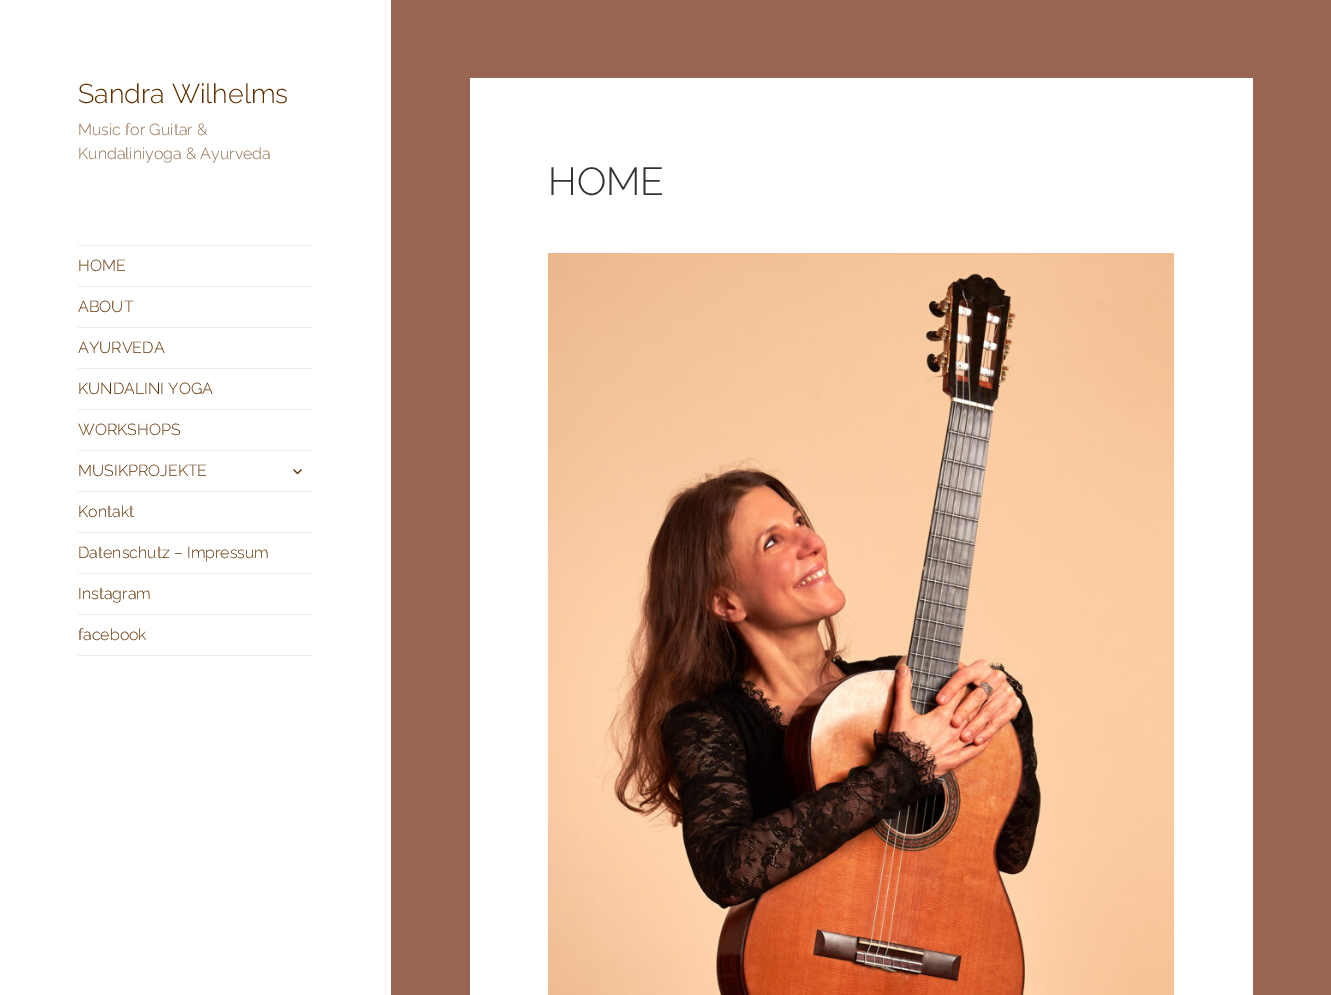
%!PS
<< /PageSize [1331 995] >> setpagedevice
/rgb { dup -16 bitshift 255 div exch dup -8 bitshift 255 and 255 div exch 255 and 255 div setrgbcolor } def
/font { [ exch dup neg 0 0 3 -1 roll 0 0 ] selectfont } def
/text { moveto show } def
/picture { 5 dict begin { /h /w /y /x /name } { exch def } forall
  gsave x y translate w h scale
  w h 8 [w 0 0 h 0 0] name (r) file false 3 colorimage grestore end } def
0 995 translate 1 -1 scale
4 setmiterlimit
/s1 { /Raleway-Light 27 font 16#603000 rgb } def
/s2 { /Raleway-Light 16 font 16#906E4D rgb } def
/s3 { /Raleway-Light 16 font 16#603000 rgb } def
/s4 { /Raleway-Light 39 font 16#333333 rgb } def
16#996654 rgb
0 0 1331 995 rectfill
16#FFFFFF rgb
0 0 391 995 rectfill
s1
(Sandra Wilhelms) 78 103 text
s2
(Music for Guitar &) 78 135 text
(Kundaliniyoga & Ayurveda) 78 159 text
16#EFEAE6 rgb
78 245 235 1 rectfill
78 655 235 1 rectfill
s3
(HOME) 78 271 text
16#EFEAE6 rgb
78 286 235 1 rectfill
s3
(ABOUT) 78 312 text
16#EFEAE6 rgb
78 327 235 1 rectfill
s3
(AYURVEDA) 78 353 text
16#EFEAE6 rgb
78 368 235 1 rectfill
s3
(KUNDALINI YOGA) 78 394 text
16#EFEAE6 rgb
78 409 235 1 rectfill
s3
(WORKSHOPS) 78 435 text
16#EFEAE6 rgb
78 450 235 1 rectfill
s3
(MUSIKPROJEKTE) 78 476 text
(pic1.raw) 293 469 9 6 picture
16#EFEAE6 rgb
78 491 235 1 rectfill
s3
(Kontakt) 78 517 text
16#EFEAE6 rgb
78 532 235 1 rectfill
s3
(Datenschutz – Impressum) 78 558 text
16#EFEAE6 rgb
78 573 235 1 rectfill
s3
(Instagram) 78 599 text
16#EFEAE6 rgb
78 614 235 1 rectfill
s3
(facebook) 78 640 text
16#FFFFFF rgb
470 78 783 917 rectfill
s4
(HOME) 548 195 text
(pic2.raw) 548 253 626 742 picture
showpage
